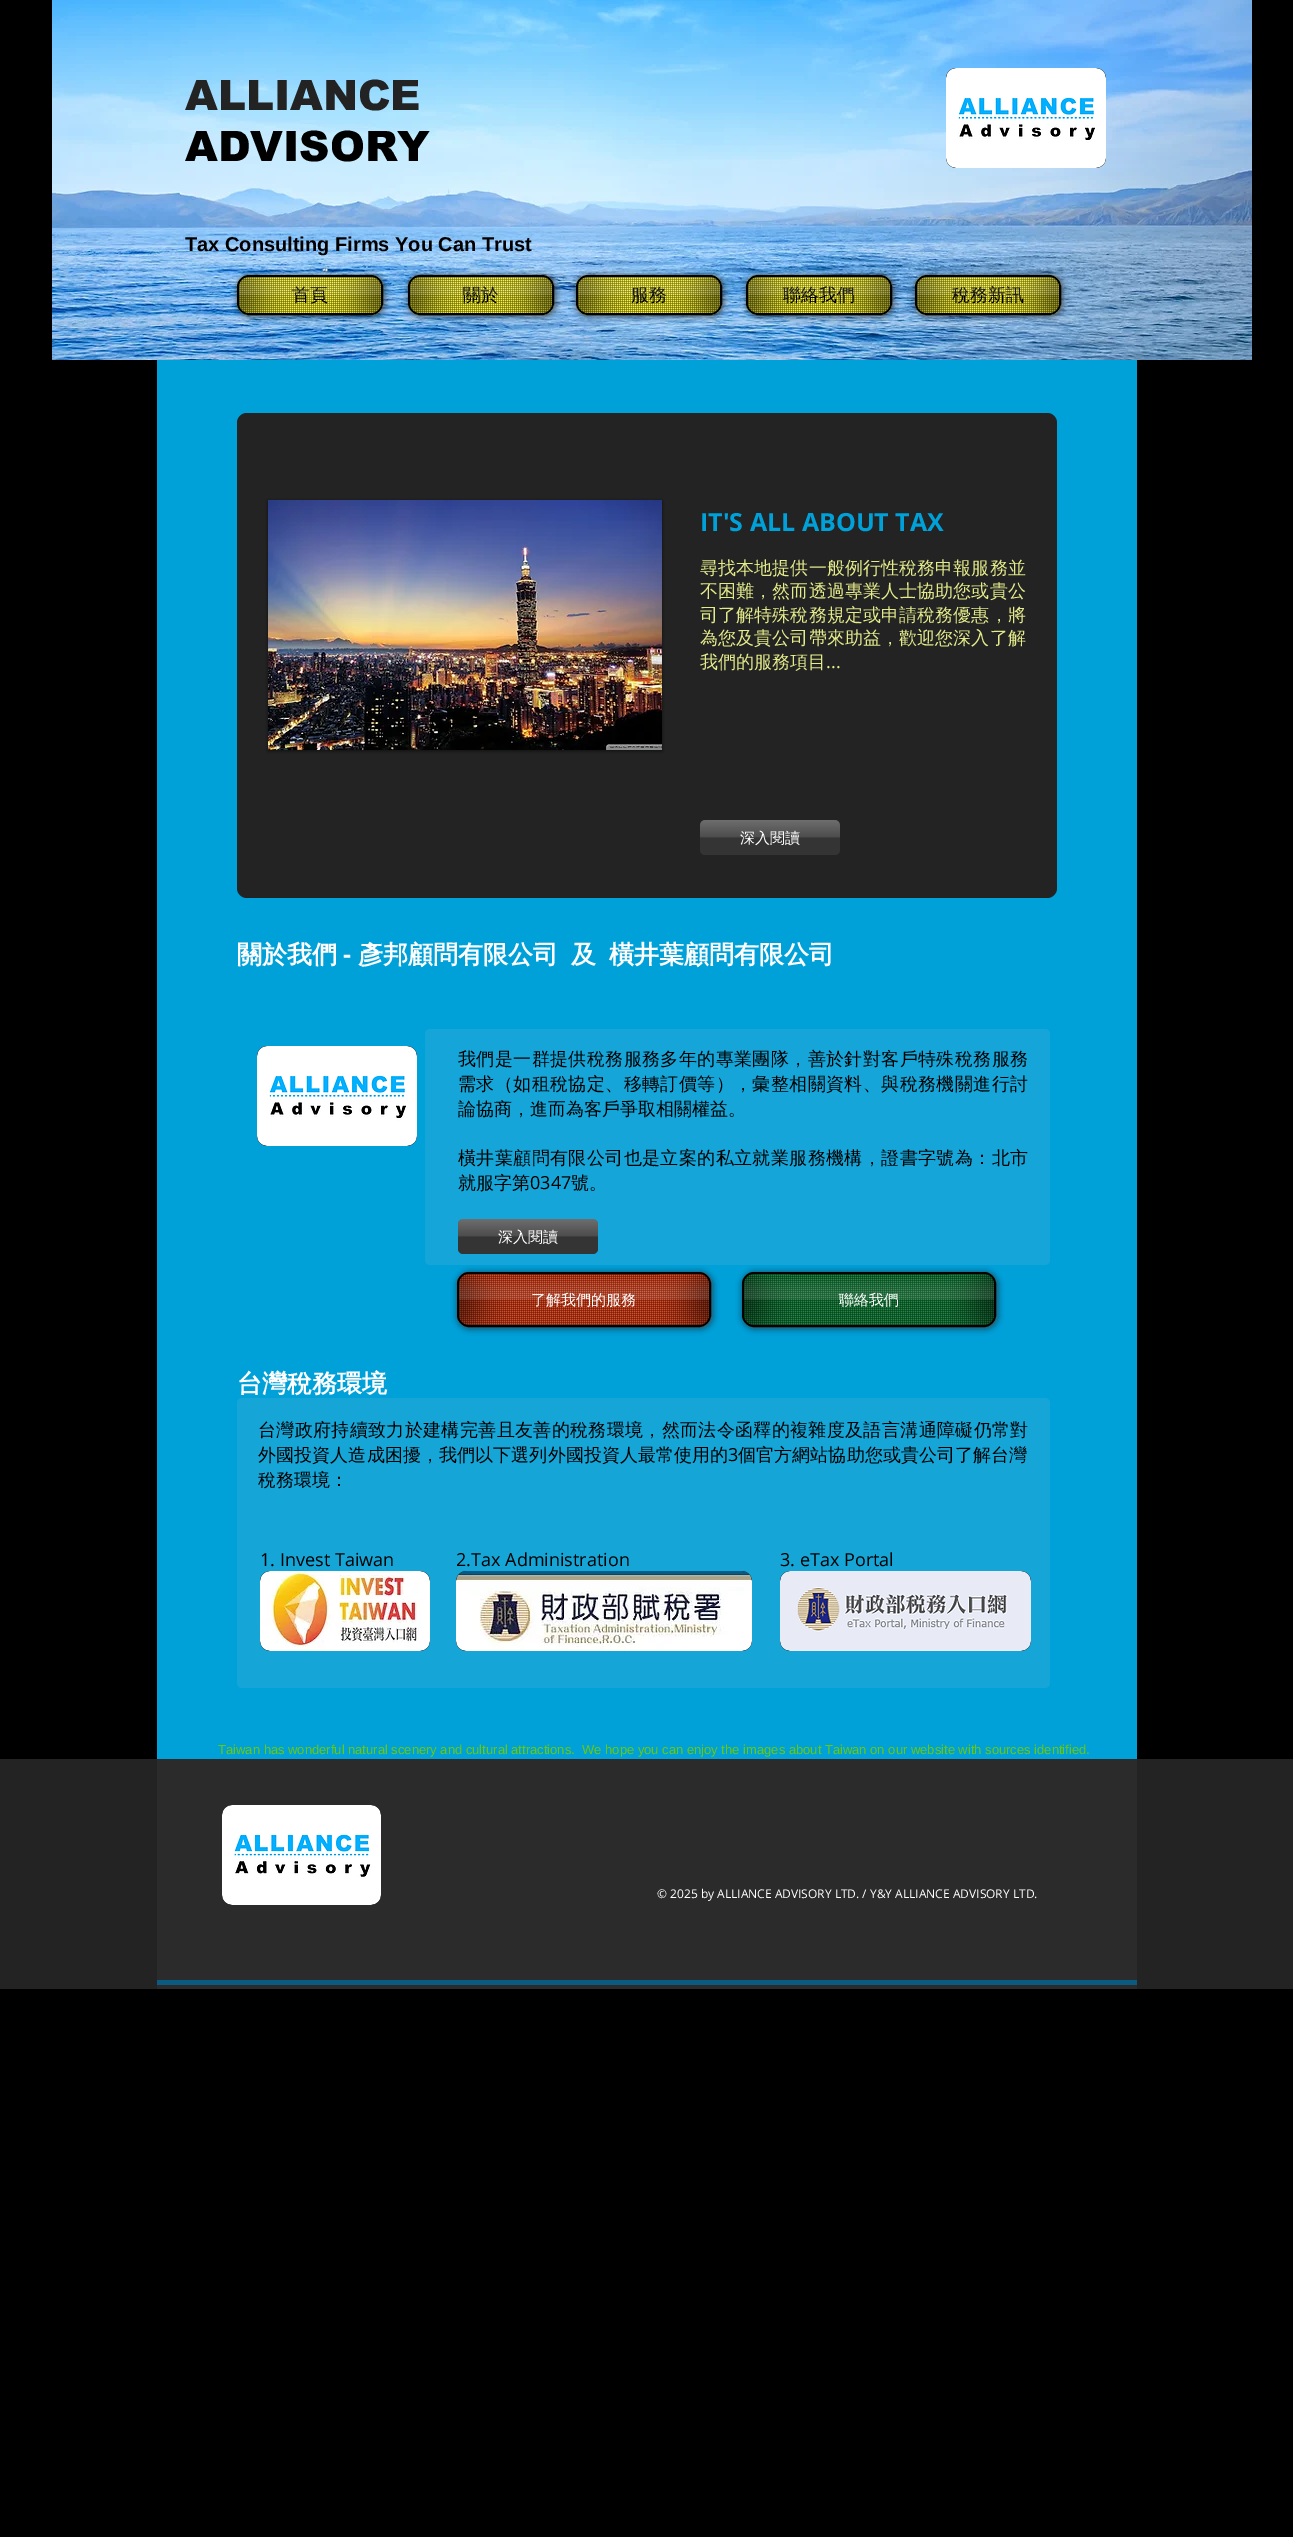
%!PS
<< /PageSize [1293 2537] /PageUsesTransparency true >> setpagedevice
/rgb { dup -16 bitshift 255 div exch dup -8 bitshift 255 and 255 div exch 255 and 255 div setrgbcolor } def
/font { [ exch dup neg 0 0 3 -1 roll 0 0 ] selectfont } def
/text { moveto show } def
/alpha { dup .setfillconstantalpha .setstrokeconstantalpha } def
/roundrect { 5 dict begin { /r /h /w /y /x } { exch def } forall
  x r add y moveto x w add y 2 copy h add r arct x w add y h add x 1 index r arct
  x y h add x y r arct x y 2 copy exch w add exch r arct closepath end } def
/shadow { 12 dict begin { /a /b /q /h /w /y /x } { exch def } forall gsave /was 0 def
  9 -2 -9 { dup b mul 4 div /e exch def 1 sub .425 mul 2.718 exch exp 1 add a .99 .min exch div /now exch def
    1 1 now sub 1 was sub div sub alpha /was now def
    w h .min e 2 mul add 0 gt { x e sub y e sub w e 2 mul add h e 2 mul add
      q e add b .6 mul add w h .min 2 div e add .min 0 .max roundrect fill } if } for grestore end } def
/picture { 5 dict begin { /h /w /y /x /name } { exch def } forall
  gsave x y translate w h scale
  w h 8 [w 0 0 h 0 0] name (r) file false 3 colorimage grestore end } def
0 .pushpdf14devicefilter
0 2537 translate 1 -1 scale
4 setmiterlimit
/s1 { /arial-Black 42 font 16#232323 rgb } def
/s2 { /arial-Black 42 font 16#000000 rgb } def
/s3 { /LiberationSans-Bold 20 font 16#000000 rgb } def
/s4 { /WenQuanYiZenHei-Medium 18 font 16#000000 rgb } def
/s5 { /OpenSans-Bold 25 font 16#00A0D9 rgb } def
/s6 { /WenQuanYiZenHei-Medium 18 font 16#E4EB8A rgb } def
/s7 { /OpenSans-Regular 18 font 16#E4EB8A rgb } def
/s8 { /OpenSans-Regular 15 font 16#232323 rgb } def
/s9 { /WenQuanYiZenHei-Medium 15 font 16#FFFFFF rgb } def
/s10 { /WenQuanYiZenHei-Bold 25 font 16#FFFFFF rgb } def
/s11 { /OpenSans-Bold 25 font 16#FFFFFF rgb } def
/s12 { /OpenSans-Regular 18 font 16#000000 rgb } def
/s13 { /LiberationSans-Regular 13 font 16#6BC90C rgb } def
/s14 { /OpenSans-Regular 12 font 16#FFFFFF rgb } def
16#000000 rgb
0 0 1293 2537 rectfill
(pic1.raw) 52 0 1200 360 picture
s1
(ALLIANCE) 185 110 text
s2
(ADVISORY) 185 161 text
16#232323 rgb
946 68 160 100 10 roundrect fill
(pic2.raw) 946 68 160 100 picture
s3
(Tax Consulting Firms You Can Trust) 185 251 text
16#FFFFFF rgb
238 276 146 40 12 1.5 0.3 shadow
16#000000 rgb
237 275 148 42 13 3 0.6 shadow
16#FDF733 rgb
237 275 146 40 12 roundrect fill
(pic3.raw) 237 275 146 40 picture
16#000000 rgb
2 setlinewidth
238 276 144 38 11 roundrect stroke
(pic4.raw) 239 277 50 36 picture
s4
(首頁) 292 301 text
(pic6.raw) 331 277 50 36 picture
(pic5.raw) 239 277 142 18 picture
16#FFFFFF rgb
409 276 146 40 12 1.5 0.3 shadow
16#000000 rgb
408 275 148 42 13 3 0.6 shadow
16#FDF733 rgb
408 275 146 40 12 roundrect fill
(pic7.raw) 408 275 146 40 picture
16#000000 rgb
409 276 144 38 11 roundrect stroke
(pic8.raw) 410 277 50 36 picture
(關於) 463 301 text
(pic10.raw) 502 277 50 36 picture
(pic9.raw) 410 277 142 18 picture
16#FFFFFF rgb
577 276 146 40 12 1.5 0.3 shadow
16#000000 rgb
576 275 148 42 13 3 0.6 shadow
16#FDF733 rgb
576 275 146 40 12 roundrect fill
(pic11.raw) 576 275 146 40 picture
16#000000 rgb
577 276 144 38 11 roundrect stroke
(pic12.raw) 578 277 50 36 picture
(服務) 631 301 text
(pic14.raw) 670 277 50 36 picture
(pic13.raw) 578 277 142 18 picture
16#FFFFFF rgb
747 276 146 40 12 1.5 0.3 shadow
16#000000 rgb
746 275 148 42 13 3 0.6 shadow
16#FDF733 rgb
746 275 146 40 12 roundrect fill
(pic15.raw) 746 275 146 40 picture
16#000000 rgb
747 276 144 38 11 roundrect stroke
(pic16.raw) 748 277 50 36 picture
(pic18.raw) 840 277 50 36 picture
(聯絡我們) 783 301 text
(pic17.raw) 748 277 142 18 picture
16#FFFFFF rgb
916 276 146 40 12 1.5 0.3 shadow
16#000000 rgb
915 275 148 42 13 3 0.6 shadow
16#FDF733 rgb
915 275 146 40 12 roundrect fill
(pic19.raw) 915 275 146 40 picture
16#000000 rgb
916 276 144 38 11 roundrect stroke
(pic20.raw) 917 277 50 36 picture
(pic22.raw) 1009 277 50 36 picture
(稅務新訊) 952 301 text
(pic21.raw) 917 277 142 18 picture
16#00A0D9 rgb
157 360 980 1399 rectfill
16#232323 rgb
237 413 820 485 10 roundrect fill
s5
(IT'S ALL ABOUT TAX) 700 531 text
/WenQuanYiZenHei-Medium 18 font
16#E4EB8A rgb
700 574 moveto 0.1 0 (尋找本地提供一般例行性稅務申報服務並) ashow
700 597 moveto 0.1 0 (不困難，然而透過專業人士協助您或貴公) ashow
700 621 moveto 0.1 0 (司了解特殊稅務規定或申請稅務優惠，將) ashow
700 644 moveto 0.1 0 (為您及貴公司帶來助益，歡迎您深入了解) ashow
(我們的服務項目) 700 668 text
s7
(...) 826 668 text
16#000000 rgb
268 501 394 250 0 1.5 0.5 shadow
(pic23.raw) 268 500 394 250 picture
s8
(Taipei 101) 288 714 text
16#343434 rgb
700 820 140 35 5 roundrect fill
(pic24.raw) 700 820 140 18 picture
s9
(深入閱讀) 740 843 text
s10
(關於我們) 237 963 text
s11
(-) 343 963 text
s10
(彥邦顧問有限公司) 358 963 text
(及) 571 963 text
(橫井葉顧問有限公司) 609 963 text
16#232323 rgb
257 1046 160 100 10 roundrect fill
(pic25.raw) 257 1046 160 100 picture
16#15A5D8 rgb
425 1029 625 236 5 roundrect fill
/WenQuanYiZenHei-Medium 18 font
16#000000 rgb
458 1065 moveto 0.4 0 (我們是一群提供稅務服務多年的專業團隊，善於針對客戶特殊稅務服務) ashow
458 1090 moveto 0.4 0 (需求（如租稅協定、移轉訂價等），彙整相關資料、與稅務機關進行討) ashow
(論協商，進而為客戶爭取相關權益。) 458 1115 text
458 1164 moveto 0.4 0 (橫井葉顧問有限公司也是立案的私立就業服務機構，證書字號為：北市) ashow
(就服字第) 458 1189 text
s12
(0347) 530 1189 text
s4
(號。) 571 1189 text
16#343434 rgb
458 1219 140 35 5 roundrect fill
(pic26.raw) 458 1219 140 18 picture
s9
(深入閱讀) 498 1242 text
458 1273 254 55 12 1.5 0.3 shadow
16#000000 rgb
457 1272 256 57 13 3 0.6 shadow
16#E84A22 rgb
457 1272 254 55 12 roundrect fill
(pic27.raw) 457 1272 254 55 picture
16#000000 rgb
458 1273 252 53 11 roundrect stroke
(pic28.raw) 459 1274 50 51 picture
(pic29.raw) 659 1274 50 51 picture
s9
(了解我們的服務) 531 1305 text
(pic30.raw) 459 1279 250 21 picture
743 1273 254 55 12 1.5 0.3 shadow
16#000000 rgb
742 1272 256 57 13 3 0.6 shadow
16#1C8A43 rgb
742 1272 254 55 12 roundrect fill
(pic31.raw) 742 1272 254 55 picture
16#000000 rgb
743 1273 252 53 11 roundrect stroke
(pic32.raw) 744 1274 46 51 picture
(pic33.raw) 949 1274 45 51 picture
s9
(聯絡我們) 839 1305 text
(pic34.raw) 744 1279 250 21 picture
s10
(台灣稅務環境) 237 1392 text
16#15A5D7 rgb
237 1398 813 290 5 roundrect fill
/WenQuanYiZenHei-Medium 18 font
16#000000 rgb
258 1436 moveto 0.35 0 (台灣政府持續致力於建構完善且友善的稅務環境，然而法令函釋的複雜度及語言溝通障礙仍常對) ashow
258 1461 moveto 0.1 0 (外國投資人造成困擾，我們以下選列外國投資人最常使用的) ashow
/OpenSans-Regular 18 font
728 1461 moveto 0.1 0 (3) ashow
/WenQuanYiZenHei-Medium 18 font
738 1461 moveto 0.1 0 (個官方網站協助您或貴公司了解台灣) ashow
(稅務環境：) 258 1486 text
s12
(1. Invest Taiwan) 260 1566 text
(2.Tax Administration) 456 1566 text
(3. eTax Portal) 780 1566 text
16#232323 rgb
260 1571 170 80 10 roundrect fill
(pic35.raw) 260 1571 170 80 picture
456 1571 296 80 10 roundrect fill
(pic36.raw) 456 1571 296 80 picture
780 1571 251 80 10 roundrect fill
(pic37.raw) 780 1571 251 80 picture
s13
(Taiwan has wonderful natural scenery and cultural attractions.  We hope you can enjoy the images about Taiwan on our website with sources identified.) 218 1754 text
16#232323 rgb
0 1759 1293 230 rectfill
16#2B2B2B rgb
157 1759 980 230 rectfill
16#232323 rgb
222 1805 159 100 10 roundrect fill
(pic38.raw) 222 1805 159 100 picture
s14
(© 2025 by ALLIANCE ADVISORY LTD. / Y&Y ALLIANCE ADVISORY LTD.) 657 1898 text
16#0A5A82 rgb
157 1980 980 5 rectfill
.poppdf14devicefilter showpage
